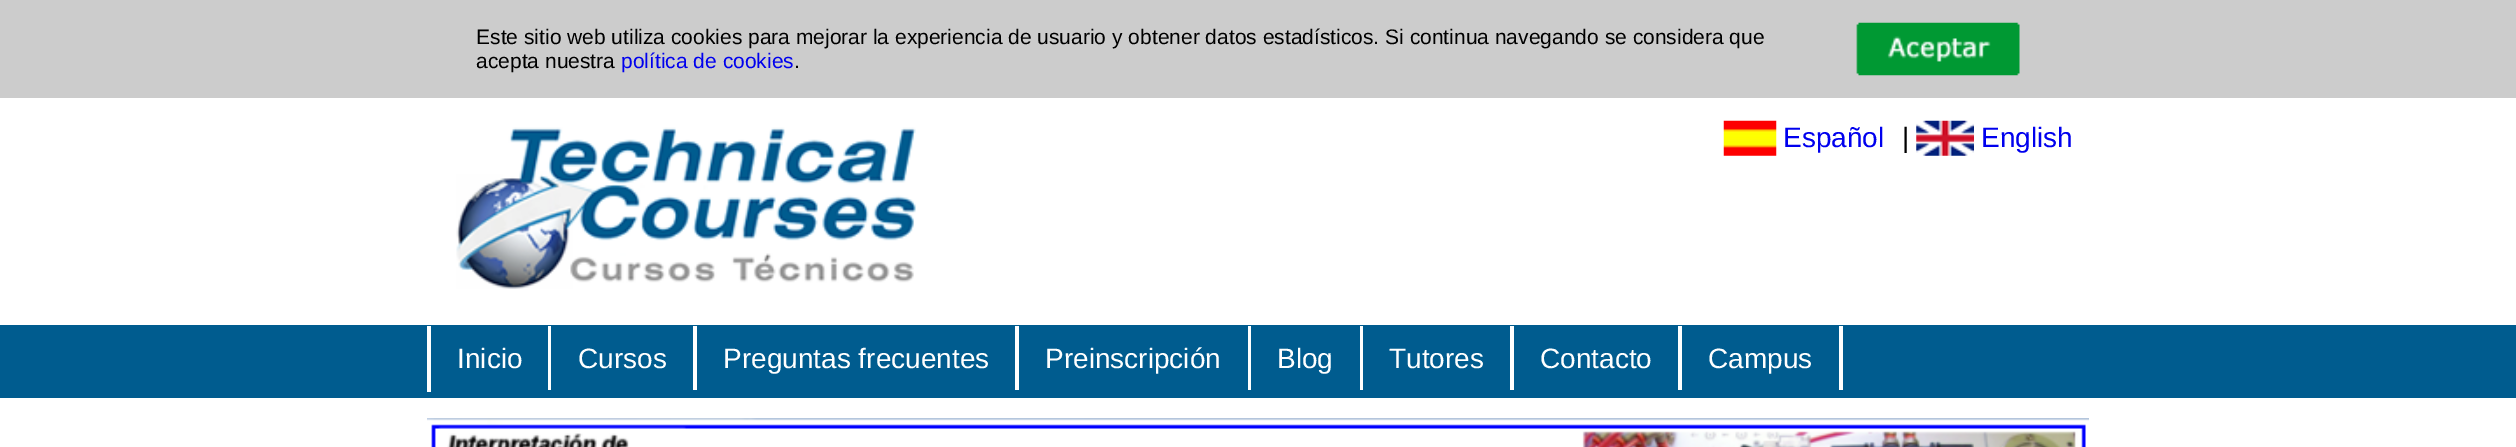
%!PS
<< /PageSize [2516 447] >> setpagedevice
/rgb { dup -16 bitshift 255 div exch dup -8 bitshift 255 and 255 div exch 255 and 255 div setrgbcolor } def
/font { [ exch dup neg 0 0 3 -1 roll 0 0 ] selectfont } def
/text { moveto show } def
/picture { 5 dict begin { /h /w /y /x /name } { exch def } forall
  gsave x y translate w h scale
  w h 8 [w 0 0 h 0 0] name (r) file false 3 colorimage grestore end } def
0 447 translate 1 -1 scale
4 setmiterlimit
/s1 { /LiberationSans-Regular 21 font 16#000000 rgb } def
/s2 { /LiberationSans-Regular 21 font 16#0000EE rgb } def
/s3 { /LiberationSans-Regular 28 font 16#0000EE rgb } def
/s4 { /LiberationSans-Regular 28 font 16#000000 rgb } def
/s5 { /LiberationSans-Regular 28 font 16#FFFFFF rgb } def
16#FFFFFF rgb
0 0 2516 447 rectfill
16#CCCCCC rgb
0 0 2516 98 rectfill
s1
(Este sitio web utiliza cookies para mejorar la experiencia de usuario y obtener datos estadísticos. Si continua navegando se considera que) 476 44 text
(acepta nuestra) 476 68 text
s2
(política de cookies) 621 68 text
s1
(.) 794 68 text
(pic1.raw) 1856 22 164 54 picture
16#005C8F rgb
0 325 2516 73 rectfill
(pic2.raw) 456 127 460 162 picture
(pic3.raw) 1723 120 54 36 picture
s3
(Español) 1783 147 text
s4
(|) 1902 147 text
(pic4.raw) 1916 120 58 36 picture
s3
(English) 1981 147 text
16#FFFFFF rgb
427 326 4 66 rectfill
(Inicio) 457 368 text
548 326 3 64 rectfill
(Cursos) 578 368 text
693 326 4 64 rectfill
(Preguntas frecuentes) 723 368 text
1015 326 4 64 rectfill
(Preinscripción) 1045 368 text
1248 326 3 64 rectfill
(Blog) 1277 368 text
1360 326 3 64 rectfill
(Tutores) 1389 368 text
1510 326 4 64 rectfill
(Contacto) 1540 368 text
1678 326 4 64 rectfill
(Campus) 1708 368 text
1839 326 4 64 rectfill
(pic5.raw) 427 418 1662 29 picture
showpage
